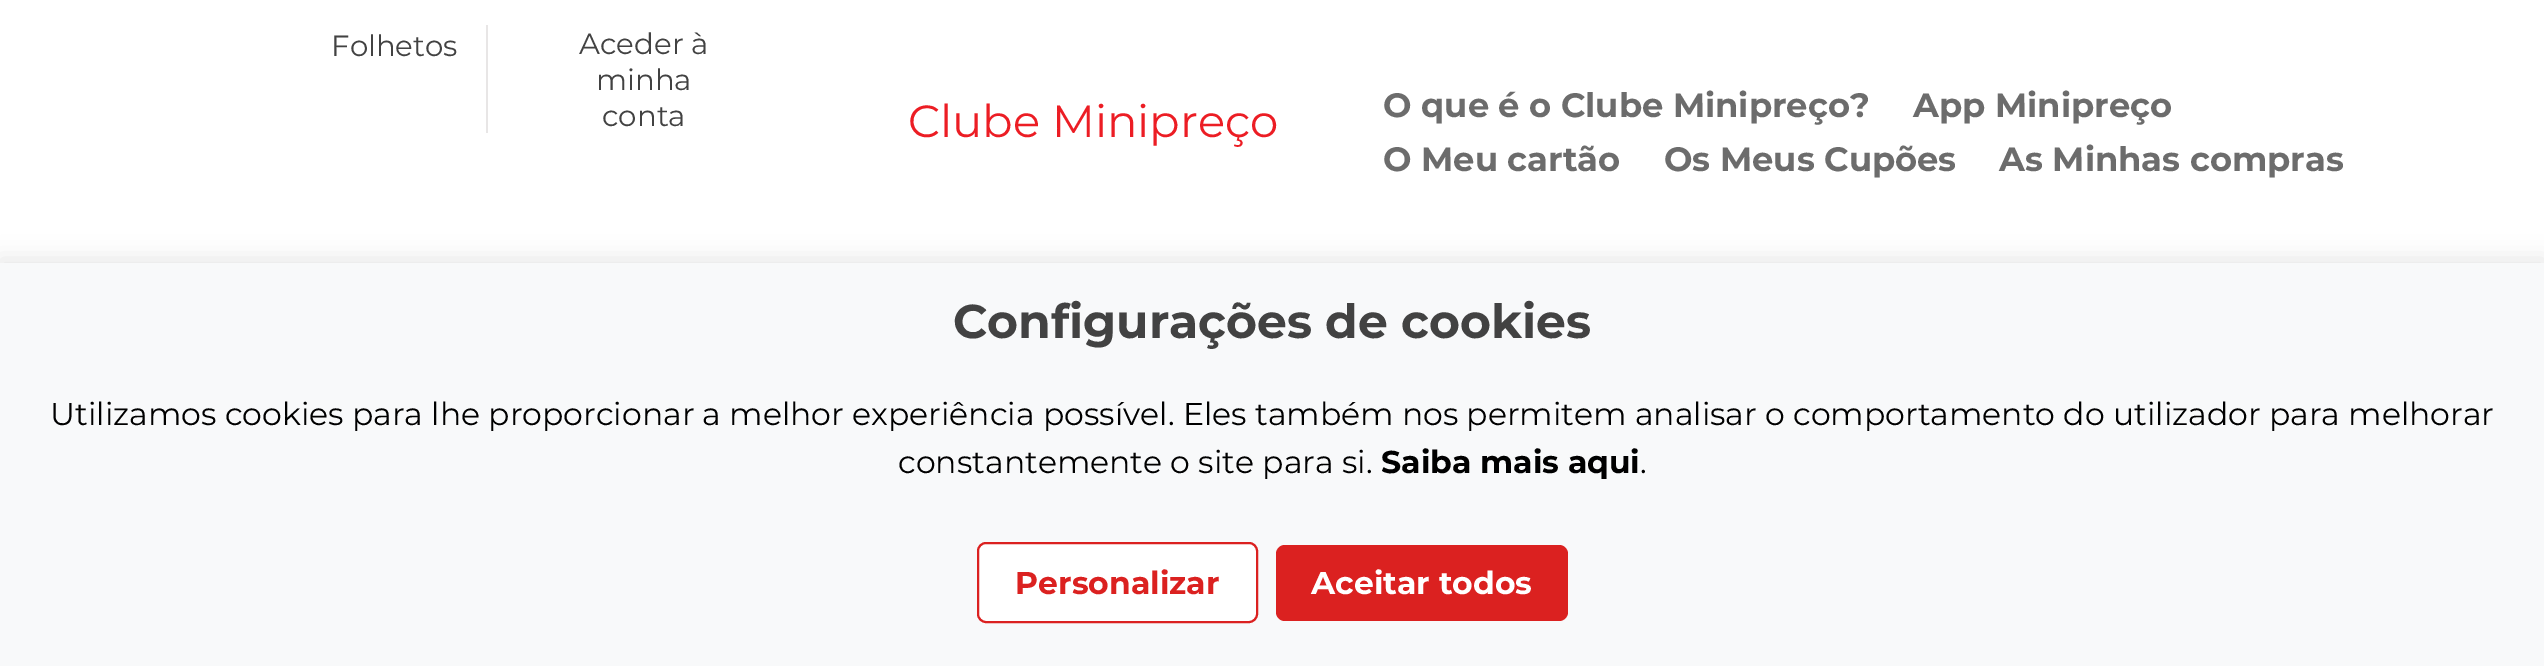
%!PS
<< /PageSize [2544 666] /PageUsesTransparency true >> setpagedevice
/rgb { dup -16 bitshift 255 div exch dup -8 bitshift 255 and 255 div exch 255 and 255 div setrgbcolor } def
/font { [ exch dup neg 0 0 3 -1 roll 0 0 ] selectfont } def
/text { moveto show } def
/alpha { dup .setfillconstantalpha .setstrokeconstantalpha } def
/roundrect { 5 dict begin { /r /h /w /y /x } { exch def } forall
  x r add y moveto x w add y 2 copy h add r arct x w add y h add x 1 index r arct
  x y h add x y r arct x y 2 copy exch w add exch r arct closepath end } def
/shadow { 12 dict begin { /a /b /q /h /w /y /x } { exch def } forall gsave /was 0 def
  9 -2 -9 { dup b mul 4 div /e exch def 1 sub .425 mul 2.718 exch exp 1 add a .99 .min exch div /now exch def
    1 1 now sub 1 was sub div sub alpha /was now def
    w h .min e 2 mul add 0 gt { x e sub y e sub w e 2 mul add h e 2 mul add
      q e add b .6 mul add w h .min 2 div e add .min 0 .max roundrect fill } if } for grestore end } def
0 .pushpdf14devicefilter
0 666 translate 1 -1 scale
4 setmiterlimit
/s1 { /Montserrat-Regular 29.25 font 16#424242 rgb } def
/s2 { /Montserrat-Regular 45 font 16#EC1D24 rgb } def
/s3 { /Montserrat-Thin 33.75 font 16#6C6C6C rgb } def
/s4 { /Montserrat-Thin 47.25 font 16#424242 rgb } def
/s5 { /Montserrat-Regular 31.5 font 16#000000 rgb } def
/s6 { /Montserrat-Thin 31.5 font 16#000000 rgb } def
/s7 { /Montserrat-Thin 31.5 font 16#DB2120 rgb } def
/s8 { /Montserrat-Thin 31.5 font 16#FFFFFF rgb } def
16#FFFFFF rgb
0 0 2544 666 rectfill
s1
(Folhetos) 331 56 text
16#E8E6E6 rgb
486 25 2 108 rectfill
s1
(Aceder à) 579 54 text
(minha) 596 90 text
(conta) 602 126 text
s2
(Clube Minipreço) 908 137 text
s3
(O que é o Clube Minipreço?) 1383 117 text
(App Minipreço) 1913 117 text
(O Meu cartão) 1383 171 text
(Os Meus Cupões) 1664 171 text
(As Minhas compras) 1999 171 text
16#000000 rgb
0 259 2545 403 0 11 0.1 shadow
16#F8F9FA rgb
0 263 2544 403 rectfill
s4
(Configurações de cookies) 953 338 text
s5
(Utilizamos cookies para lhe proporcionar a melhor experiência possível. Eles também nos permitem analisar o comportamento do utilizador para melhorar) 50 425 text
(constantemente o site para si.) 898 473 text
s6
(Saiba mais aqui) 1381 473 text
s5
(.) 1640 473 text
16#FFFFFF rgb
978 543 279 79 8 roundrect gsave fill grestore
16#DB2120 rgb
2 setlinewidth
stroke
s7
(Personalizar) 1015 594 text
1276 545 292 76 9 roundrect fill
s8
(Aceitar todos) 1311 594 text
.poppdf14devicefilter showpage
